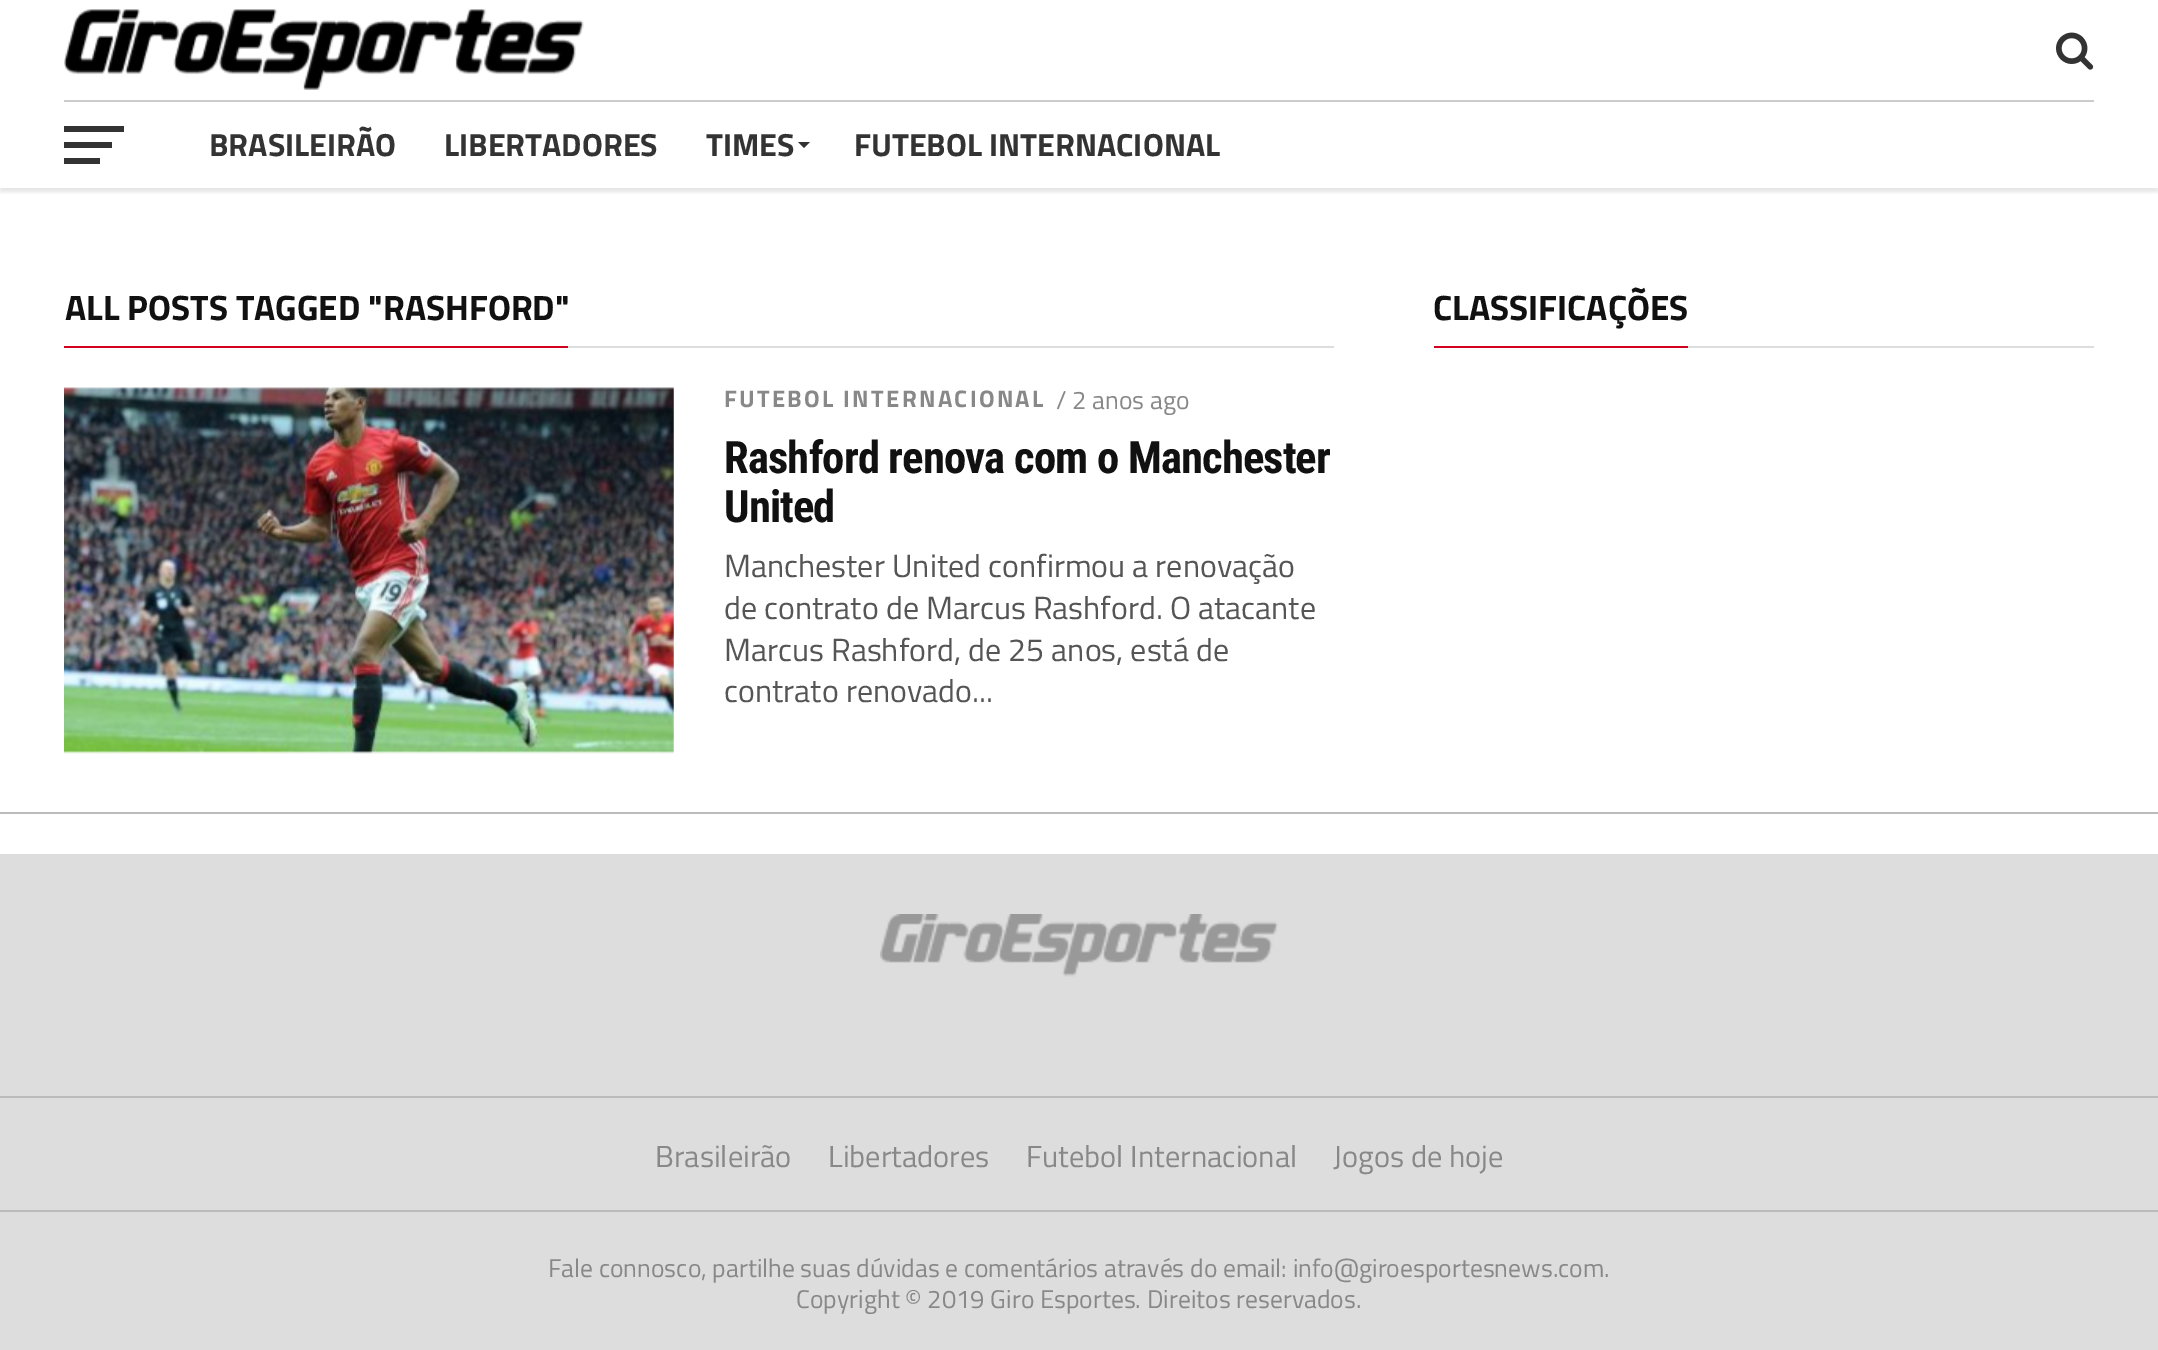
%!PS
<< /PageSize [2158 1350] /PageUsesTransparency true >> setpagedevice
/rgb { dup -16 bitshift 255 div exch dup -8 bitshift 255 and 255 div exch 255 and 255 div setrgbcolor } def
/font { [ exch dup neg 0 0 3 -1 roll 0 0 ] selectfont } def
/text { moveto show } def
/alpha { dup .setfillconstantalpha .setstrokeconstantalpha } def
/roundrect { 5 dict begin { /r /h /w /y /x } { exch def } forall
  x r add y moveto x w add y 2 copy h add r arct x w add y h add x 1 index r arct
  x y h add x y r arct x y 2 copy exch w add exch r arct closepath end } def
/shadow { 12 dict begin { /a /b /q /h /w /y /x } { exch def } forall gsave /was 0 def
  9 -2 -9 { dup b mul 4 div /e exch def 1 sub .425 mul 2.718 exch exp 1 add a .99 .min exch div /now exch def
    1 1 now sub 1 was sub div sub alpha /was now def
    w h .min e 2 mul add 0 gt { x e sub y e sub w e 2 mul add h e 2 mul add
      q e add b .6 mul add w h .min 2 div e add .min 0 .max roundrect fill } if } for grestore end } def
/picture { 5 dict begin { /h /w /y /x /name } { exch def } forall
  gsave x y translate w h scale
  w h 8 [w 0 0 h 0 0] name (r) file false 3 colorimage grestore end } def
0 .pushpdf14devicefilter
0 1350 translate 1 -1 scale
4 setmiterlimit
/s1 { /TitilliumWeb-Bold 32 font 16#333333 rgb } def
/s2 { /TitilliumWeb-Bold 35.25 font 16#111111 rgb } def
/s3 { /TitilliumWeb-Regular 25.6 font 16#888888 rgb } def
/s4 { /TitilliumWeb-Regular 32 font 16#555555 rgb } def
/s5 { /TitilliumWeb-Regular 30.5 font 16#888888 rgb } def
16#FFFFFF rgb
0 0 2158 1350 rectfill
gsave
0 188 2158 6 rectclip
16#000000 rgb
0 4 2158 188 0 2 0.1 shadow
grestore
16#CCCCCC rgb
64 100 2030 2 rectfill
(pic1.raw) 64 9 520 81 picture
(pic2.raw) 2056 32 38 38 picture
16#333333 rgb
64 126 60 6 rectfill
64 142 48 6 rectfill
64 158 36 6 rectfill
s1
(BRASILEIRÃO) 209 156 text
(LIBERTADORES) 444 156 text
(TIMES) 706 156 text
798 142 moveto 810 142 lineto 804 148 lineto closepath fill
(FUTEBOL INTERNACIONAL) 854 156 text
16#BBBBBB rgb
0 812 2158 2 rectfill
16#DDDDDD rgb
568 346 766 2 rectfill
16#D30120 rgb
64 346 504 2 rectfill
s2
(ALL POSTS TAGGED "RASHFORD") 65 320 text
(pic3.raw) 64 387 610 367 picture
/TitilliumWeb-Bold 24 font
16#888888 rgb
724 407 moveto 2.25 0 (FUTEBOL INTERNACIONAL) ashow
s3
(/ 2 anos ago) 1056 409 text
/RobotoCondensed-Bold 44.75 font
16#111111 rgb
724 473 moveto -0.9 0 (Rashford renova com o Manchester) ashow
724 522 moveto -0.9 0 (United) ashow
s4
(Manchester United confirmou a renovação) 724 577 text
(de contrato de Marcus Rashford. O atacante) 724 619 text
(Marcus Rashford, de 25 anos, está de) 724 661 text
(contrato renovado...) 724 702 text
16#DDDDDD rgb
1688 346 406 2 rectfill
16#D30120 rgb
1434 346 254 2 rectfill
s2
(CLASSIFICAÇÕES) 1433 320 text
16#DDDDDD rgb
0 854 2158 496 rectfill
(pic4.raw) 880 914 398 63 picture
16#BBBBBB rgb
0 1096 2158 2 rectfill
0 1210 2158 2 rectfill
s5
(Brasileirão) 655 1167 text
(Libertadores) 828 1167 text
(Futebol Internacional) 1026 1167 text
(Jogos de hoje) 1333 1167 text
s3
(Fale connosco, partilhe suas dúvidas e comentários através do email: info@giroesportesnews.com.) 548 1277 text
(Copyright © 2019 Giro Esportes. Direitos reservados.) 796 1308 text
.poppdf14devicefilter showpage
